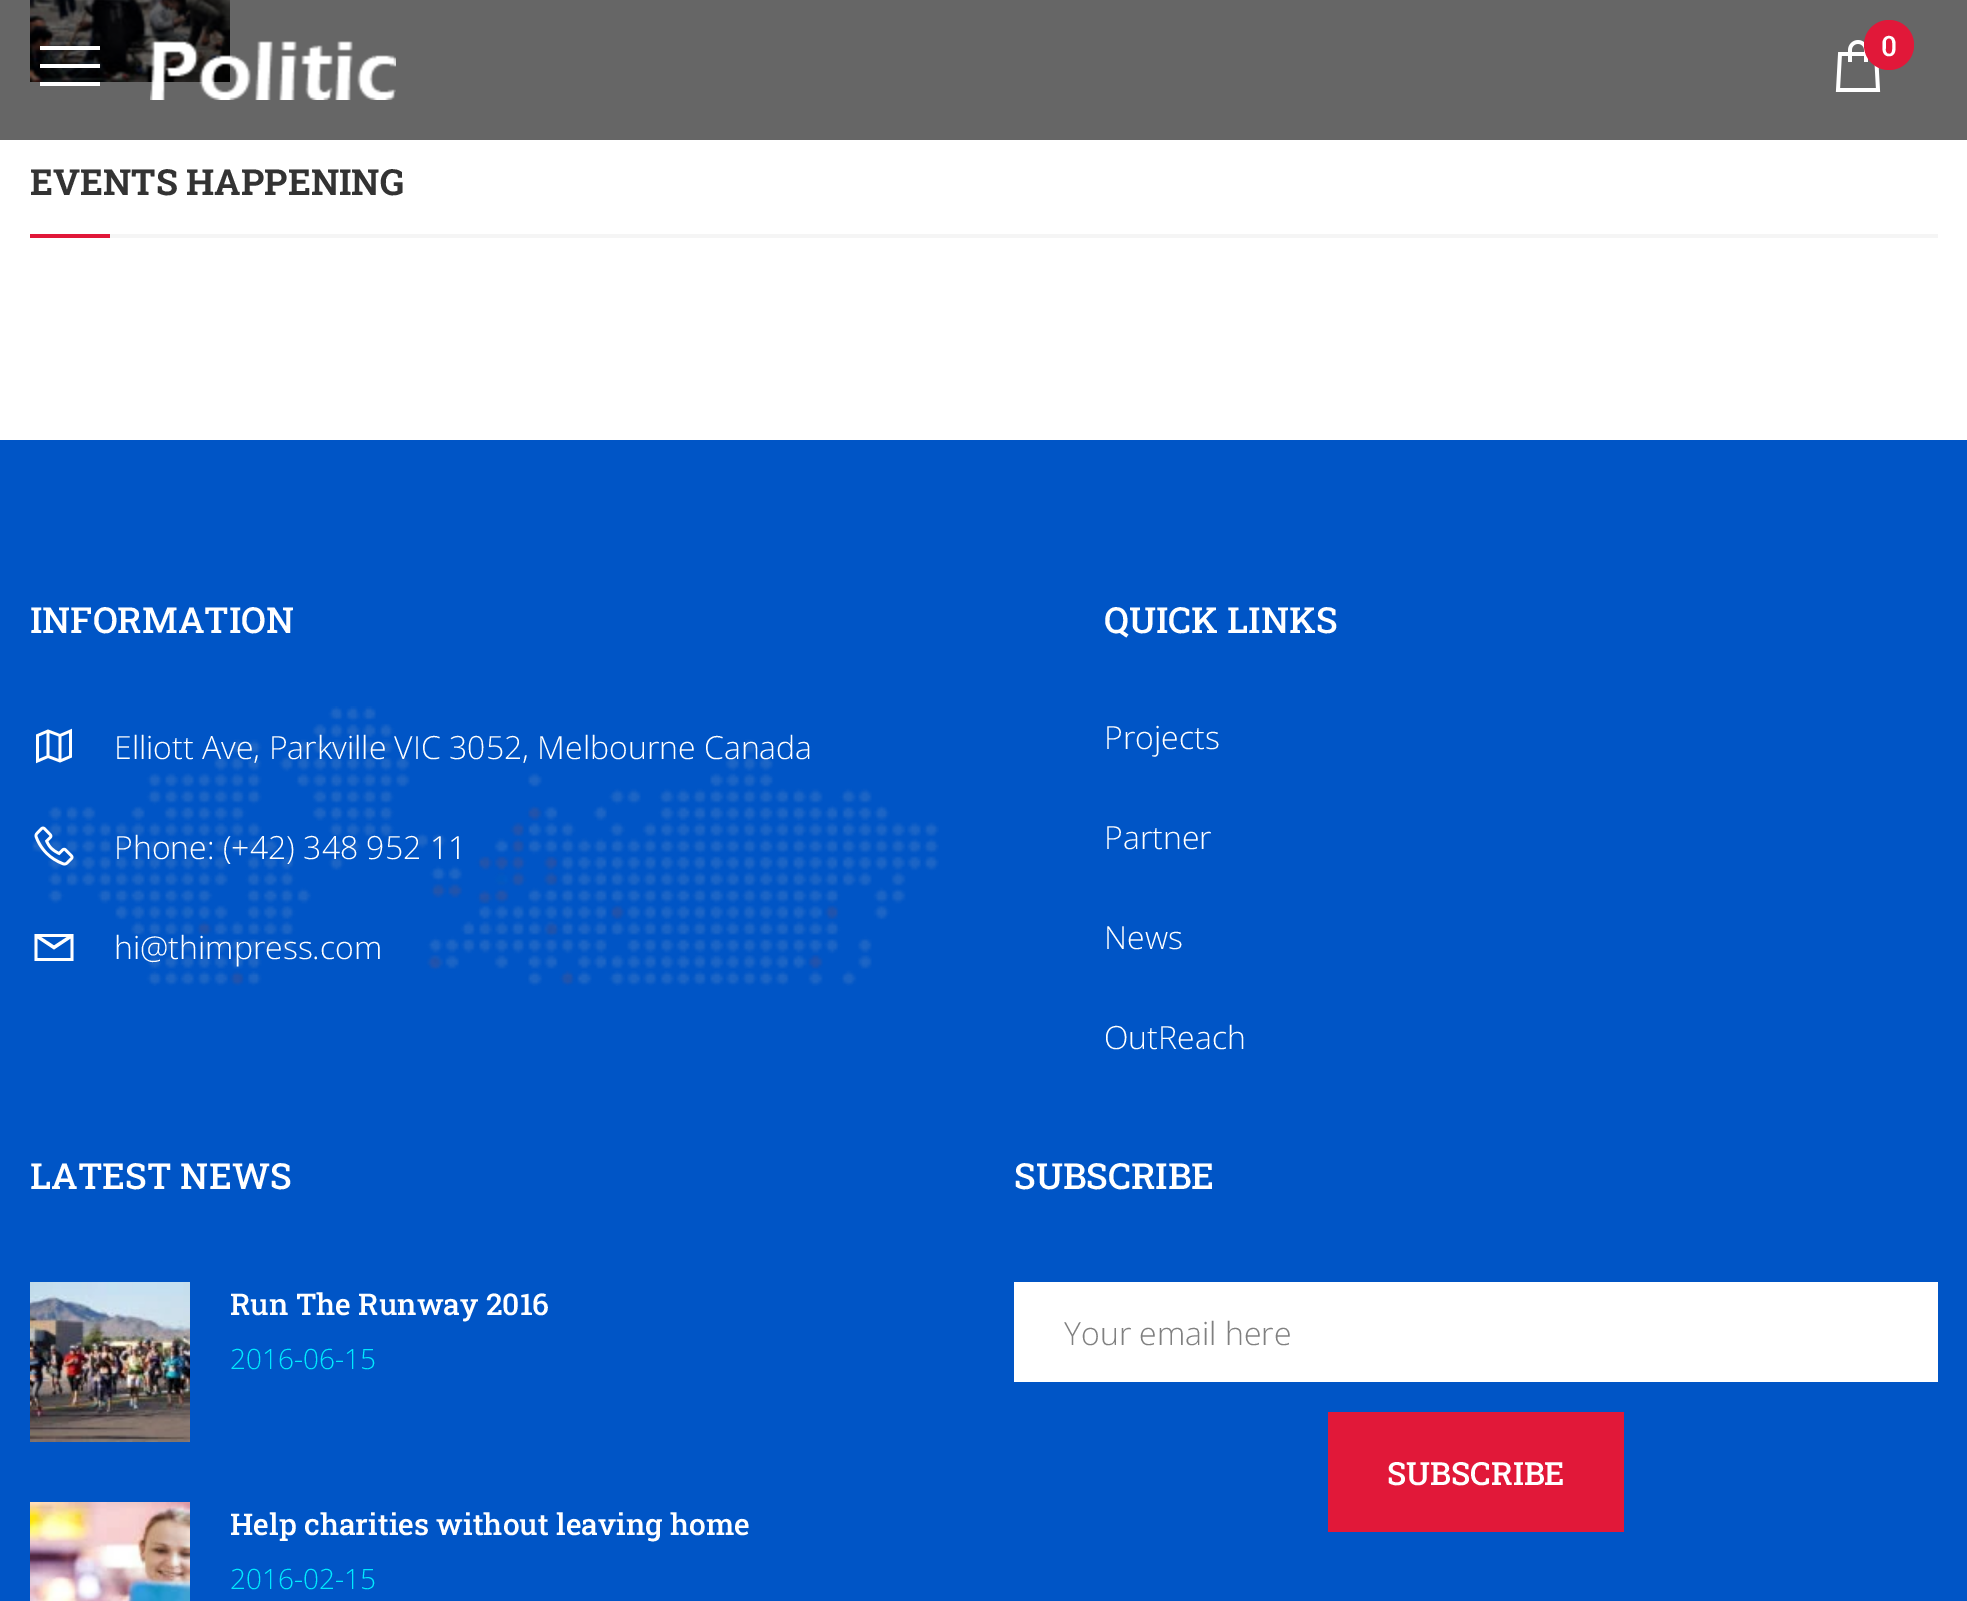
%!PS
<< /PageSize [1967 1601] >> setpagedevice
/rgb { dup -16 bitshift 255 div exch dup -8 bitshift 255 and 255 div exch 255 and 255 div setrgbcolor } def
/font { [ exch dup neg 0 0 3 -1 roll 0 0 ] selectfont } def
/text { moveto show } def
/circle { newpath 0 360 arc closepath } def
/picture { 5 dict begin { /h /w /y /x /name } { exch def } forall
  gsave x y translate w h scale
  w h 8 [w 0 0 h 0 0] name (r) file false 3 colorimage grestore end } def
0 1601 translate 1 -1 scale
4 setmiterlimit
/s1 { /RobotoSlab-Medium 28 font 16#FFFFFF rgb } def
/s2 { /RobotoSlab-Bold 36 font 16#333333 rgb } def
/s3 { /RobotoSlab-Medium 36 font 16#FFFFFF rgb } def
/s4 { /OpenSans-Light 32 font 16#FFFFFF rgb } def
/s5 { /RobotoSlab-Medium 30 font 16#FFFFFF rgb } def
/s6 { /OpenSans-Light 28 font 16#00EAFF rgb } def
/s7 { /OpenSans-Light 32 font 16#808080 rgb } def
/s8 { /RobotoSlab-Medium 32 font 16#FFFFFF rgb } def
16#FFFFFF rgb
0 0 1967 1601 rectfill
16#666666 rgb
0 0 1967 140 rectfill
(pic3.raw) 30 0 200 82 picture
16#FFFFFF rgb
40 64 60 4 rectfill
40 46 60 4 rectfill
40 82 60 4 rectfill
(pic1.raw) 150 41 246 59 picture
(pic2.raw) 1835 40 46 52 picture
16#E11839 rgb
1889 45 25 circle fill
s1
(0) 1881 56 text
s2
(EVENTS HAPPENING) 30 195 text
16#E11839 rgb
30 234 80 4 rectfill
16#F5F5F5 rgb
110 234 1828 4 rectfill
16#0055C6 rgb
0 440 1967 1161 rectfill
s3
(INFORMATION) 30 633 text
(pic4.raw) 32 706 907 280 picture
(pic5.raw) 36 728 36 36 picture
s4
(Elliott Ave, Parkville VIC 3052, Melbourne Canada) 114 759 text
(pic6.raw) 34 826 40 40 picture
(Phone: \(+42\) 348 952 11) 114 859 text
34.5 934 moveto 34.5 961 lineto 73.5 961 lineto 73.5 934 lineto closepath 41 937 moveto 67 937 lineto 54 945.5 lineto closepath 37.5 938.5 moveto 54 949.5 lineto 70.5 938.5 lineto 70.5 958 lineto 37.5 958 lineto closepath fill
(hi@thimpress.com) 114 959 text
s3
(QUICK LINKS) 1104 633 text
s4
(Projects) 1104 749 text
(Partner) 1104 849 text
(News) 1104 949 text
(OutReach) 1104 1049 text
s3
(LATEST NEWS) 30 1189 text
(pic7.raw) 30 1282 160 160 picture
s5
(Run The Runway 2016) 230 1315 text
s6
(2016-06-15) 230 1369 text
(pic8.raw) 30 1502 160 99 picture
s5
(Help charities without leaving home) 230 1535 text
s6
(2016-02-15) 230 1589 text
s3
(SUBSCRIBE) 1014 1189 text
1014 1282 924 100 rectfill
s7
(Your email here) 1064 1345 text
16#E11839 rgb
1328 1412 296 120 rectfill
s8
(SUBSCRIBE) 1387 1485 text
showpage
